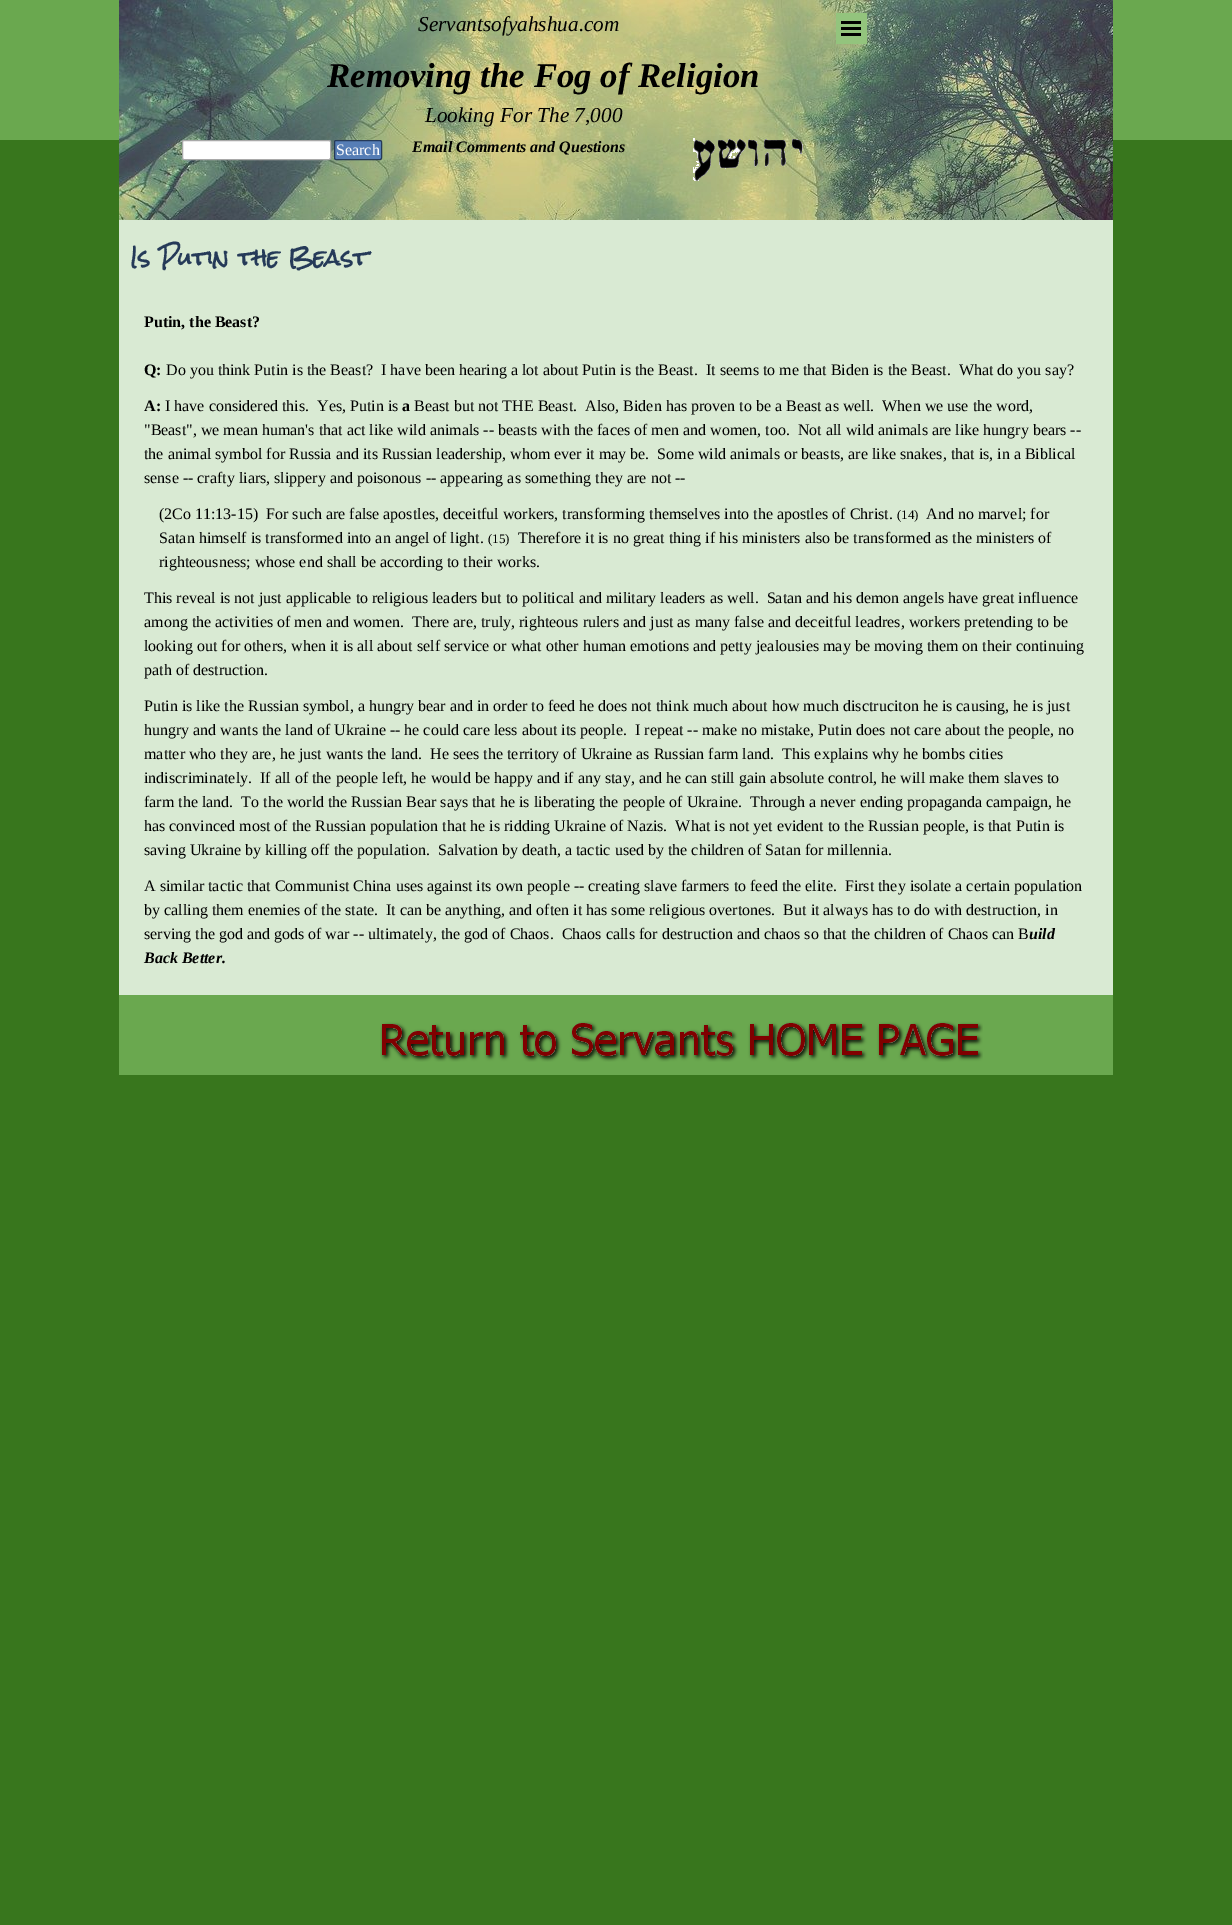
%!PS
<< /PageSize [1232 1925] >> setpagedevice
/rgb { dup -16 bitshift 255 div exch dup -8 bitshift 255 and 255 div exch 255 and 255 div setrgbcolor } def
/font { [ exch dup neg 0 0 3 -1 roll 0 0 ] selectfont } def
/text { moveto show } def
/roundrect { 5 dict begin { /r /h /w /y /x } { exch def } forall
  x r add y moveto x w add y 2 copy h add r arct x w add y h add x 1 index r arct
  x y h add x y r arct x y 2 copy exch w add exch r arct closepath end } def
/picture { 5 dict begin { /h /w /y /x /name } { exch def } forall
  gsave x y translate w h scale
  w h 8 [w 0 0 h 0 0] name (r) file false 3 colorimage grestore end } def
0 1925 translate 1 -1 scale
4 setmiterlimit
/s1 { /LiberationSerif-Italic 21.25 font 16#000000 rgb } def
/s2 { /LiberationSerif-BoldItalic 34.75 font 16#000000 rgb } def
/s3 { /LiberationSerif-Regular 16 font 16#FFFFFF rgb } def
/s4 { /LiberationSerif-BoldItalic 16 font 16#000000 rgb } def
/s5 { /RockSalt-Bold 21.25 font 16#253A58 rgb } def
/s6 { /LiberationSerif-Bold 16 font 16#000000 rgb } def
/s7 { /LiberationSerif-Regular 16 font 16#000000 rgb } def
/s8 { /LiberationSerif-Regular 13 font 16#000000 rgb } def
16#38761D rgb
0 0 1232 1925 rectfill
16#6AA84F rgb
0 0 1232 140 rectfill
(pic1.raw) 119 0 994 220 picture
s1
(Servantsofyahshua.com) 418 31 text
16#93C47D rgb
836 13 31 31 rectfill
16#000000 rgb
841 21 20 3 rectfill
841 27 20 3 rectfill
841 33 20 3 rectfill
s2
(Removing the Fog of Religion) 327 87 text
s1
(Looking For The 7,000) 425 122 text
16#FFFFFF rgb
182.5 140.5 148 19 1.5 roundrect gsave fill grestore
16#A9A9A9 rgb
stroke
16#567EB6 rgb
334.5 140.5 47 19 1.5 roundrect gsave fill grestore
16#253A58 rgb
stroke
s3
(Search) 336 155 text
s4
(Email Comments and Questions) 412 152 text
(pic2.raw) 693 138 110 43 picture
16#D9EAD3 rgb
119 220 994 775 rectfill
s5
(Is Putin the Beast) 130 266 text
s6
(Putin, the Beast?) 144 327 text
(Q:) 144 375 text
s7
(Do you think Putin is the Beast?  I have been hearing a lot about Putin is the Beast.  It seems to me that Biden is the Beast.  What do you say?) 166 375 text
s6
(A:) 144 411 text
s7
(I have considered this.  Yes, Putin is) 165 411 text
s6
(a) 402 411 text
s7
(Beast but not THE Beast.  Also, Biden has proven to be a Beast as well.  When we use the word,) 414 411 text
("Beast", we mean human's that act like wild animals -- beasts with the faces of men and women, too.  Not all wild animals are like hungry bears --) 144 435 text
(the animal symbol for Russia and its Russian leadership, whom ever it may be.  Some wild animals or beasts, are like snakes, that is, in a Biblical) 144 459 text
(sense -- crafty liars, slippery and poisonous -- appearing as something they are not --) 144 483 text
(\(2Co 11:13-15\)  For such are false apostles, deceitful workers, transforming themselves into the apostles of Christ.) 159 519 text
s8
(\(14\)) 897 519 text
s7
(And no marvel; for) 926 519 text
(Satan himself is transformed into an angel of light.) 159 543 text
s8
(\(15\)) 488 543 text
s7
(Therefore it is no great thing if his ministers also be transformed as the ministers of) 518 543 text
(righteousness; whose end shall be according to their works.) 159 567 text
(This reveal is not just applicable to religious leaders but to political and military leaders as well.  Satan and his demon angels have great influence) 144 603 text
(among the activities of men and women.  There are, truly, righteous rulers and just as many false and deceitful leadres, workers pretending to be) 144 627 text
(looking out for others, when it is all about self service or what other human emotions and petty jealousies may be moving them on their continuing) 144 651 text
(path of destruction.) 144 675 text
(Putin is like the Russian symbol, a hungry bear and in order to feed he does not think much about how much disctruciton he is causing, he is just) 144 711 text
(hungry and wants the land of Ukraine -- he could care less about its people.  I repeat -- make no mistake, Putin does not care about the people, no) 144 735 text
(matter who they are, he just wants the land.  He sees the territory of Ukraine as Russian farm land.  This explains why he bombs cities) 144 759 text
(indiscriminately.  If all of the people left, he would be happy and if any stay, and he can still gain absolute control, he will make them slaves to) 144 783 text
(farm the land.  To the world the Russian Bear says that he is liberating the people of Ukraine.  Through a never ending propaganda campaign, he) 144 807 text
(has convinced most of the Russian population that he is ridding Ukraine of Nazis.  What is not yet evident to the Russian people, is that Putin is) 144 831 text
(saving Ukraine by killing off the population.  Salvation by death, a tactic used by the children of Satan for millennia.) 144 855 text
(A similar tactic that Communist China uses against its own people -- creating slave farmers to feed the elite.  First they isolate a certain population) 144 891 text
(by calling them enemies of the state.  It can be anything, and often it has some religious overtones.  But it always has to do with destruction, in) 144 915 text
(serving the god and gods of war -- ultimately, the god of Chaos.  Chaos calls for destruction and chaos so that the children of Chaos can B) 144 939 text
s4
(uild) 1029 939 text
(Back Better.) 144 963 text
16#6AA84F rgb
119 995 994 80 rectfill
(pic3.raw) 380 1021 603 41 picture
showpage
